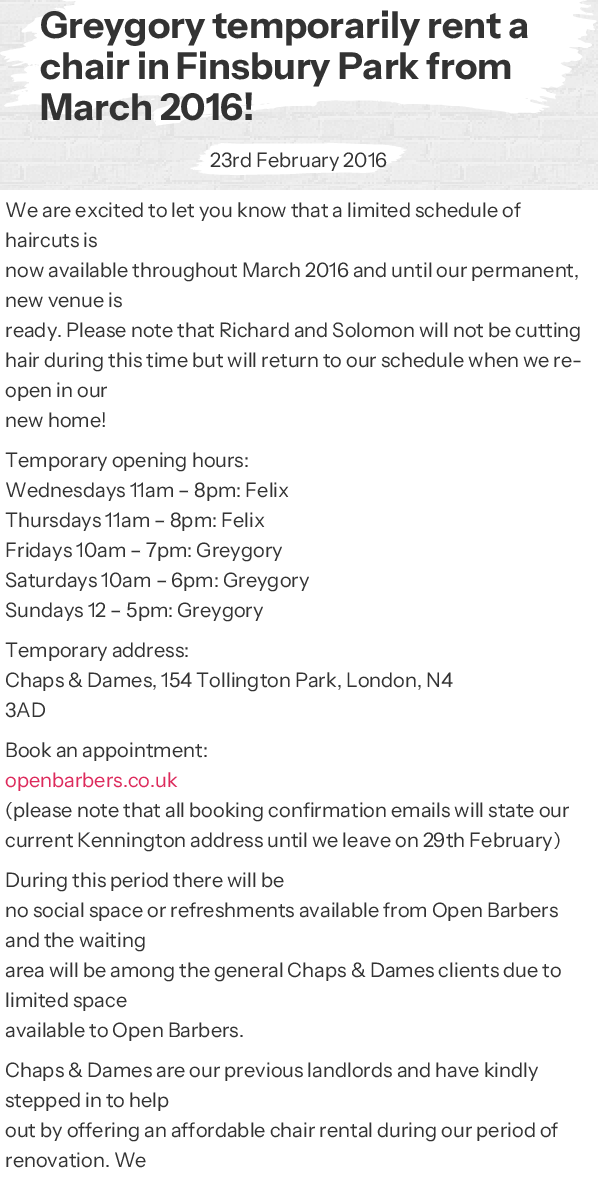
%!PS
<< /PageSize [598 1186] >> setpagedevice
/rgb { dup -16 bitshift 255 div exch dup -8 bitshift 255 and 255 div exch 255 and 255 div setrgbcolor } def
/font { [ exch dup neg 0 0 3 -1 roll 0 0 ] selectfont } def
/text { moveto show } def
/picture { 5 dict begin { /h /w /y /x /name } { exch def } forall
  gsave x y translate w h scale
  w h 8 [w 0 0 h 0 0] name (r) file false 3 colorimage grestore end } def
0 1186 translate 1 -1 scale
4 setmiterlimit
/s1 { /InstrumentSans-Bold 37 font 16#333333 rgb } def
/s2 { /InstrumentSans-Regular 20 font 16#333333 rgb } def
/s3 { /InstrumentSans-Regular 20 font 16#DD2A5C rgb } def
16#FFFFFF rgb
0 0 598 1186 rectfill
(pic1.raw) 0 0 598 190 picture
16#EEEEEE rgb
0 184 598 1 rectfill
(pic2.raw) 0 0 598 126 picture
s1
(Greygory temporarily rent a) 40 38 text
(chair in Finsbury Park from) 40 79 text
(March 2016!) 40 120 text
(pic3.raw) 190 143 217 32 picture
s2
(23rd February 2016) 210 167 text
(We are excited to let you know that a limited schedule of) 5 217 text
(haircuts is) 5 247 text
(now available throughout March 2016 and until our permanent,) 5 277 text
(new venue is) 5 307 text
(ready. Please note that Richard and Solomon will not be cutting) 5 337 text
(hair during this time but will return to our schedule when we re-) 5 367 text
(open in our) 5 397 text
(new home!) 5 427 text
(Temporary opening hours:) 5 467 text
(Wednesdays 11am – 8pm: Felix) 5 497 text
(Thursdays 11am – 8pm: Felix) 5 527 text
(Fridays 10am – 7pm: Greygory) 5 557 text
(Saturdays 10am – 6pm: Greygory) 5 587 text
(Sundays 12 – 5pm: Greygory) 5 617 text
(Temporary address:) 5 657 text
(Chaps & Dames, 154 Tollington Park, London, N4) 5 687 text
(3AD) 5 717 text
(Book an appointment:) 5 757 text
s3
(openbarbers.co.uk) 5 787 text
s2
(\(please note that all booking confirmation emails will state our) 5 817 text
(current Kennington address until we leave on 29th February\)) 5 847 text
(During this period there will be) 5 887 text
(no social space or refreshments available from Open Barbers) 5 917 text
(and the waiting) 5 947 text
(area will be among the general Chaps & Dames clients due to) 5 977 text
(limited space) 5 1007 text
(available to Open Barbers.) 5 1037 text
(Chaps & Dames are our previous landlords and have kindly) 5 1077 text
(stepped in to help) 5 1107 text
(out by offering an affordable chair rental during our period of) 5 1137 text
(renovation. We) 5 1167 text
showpage
